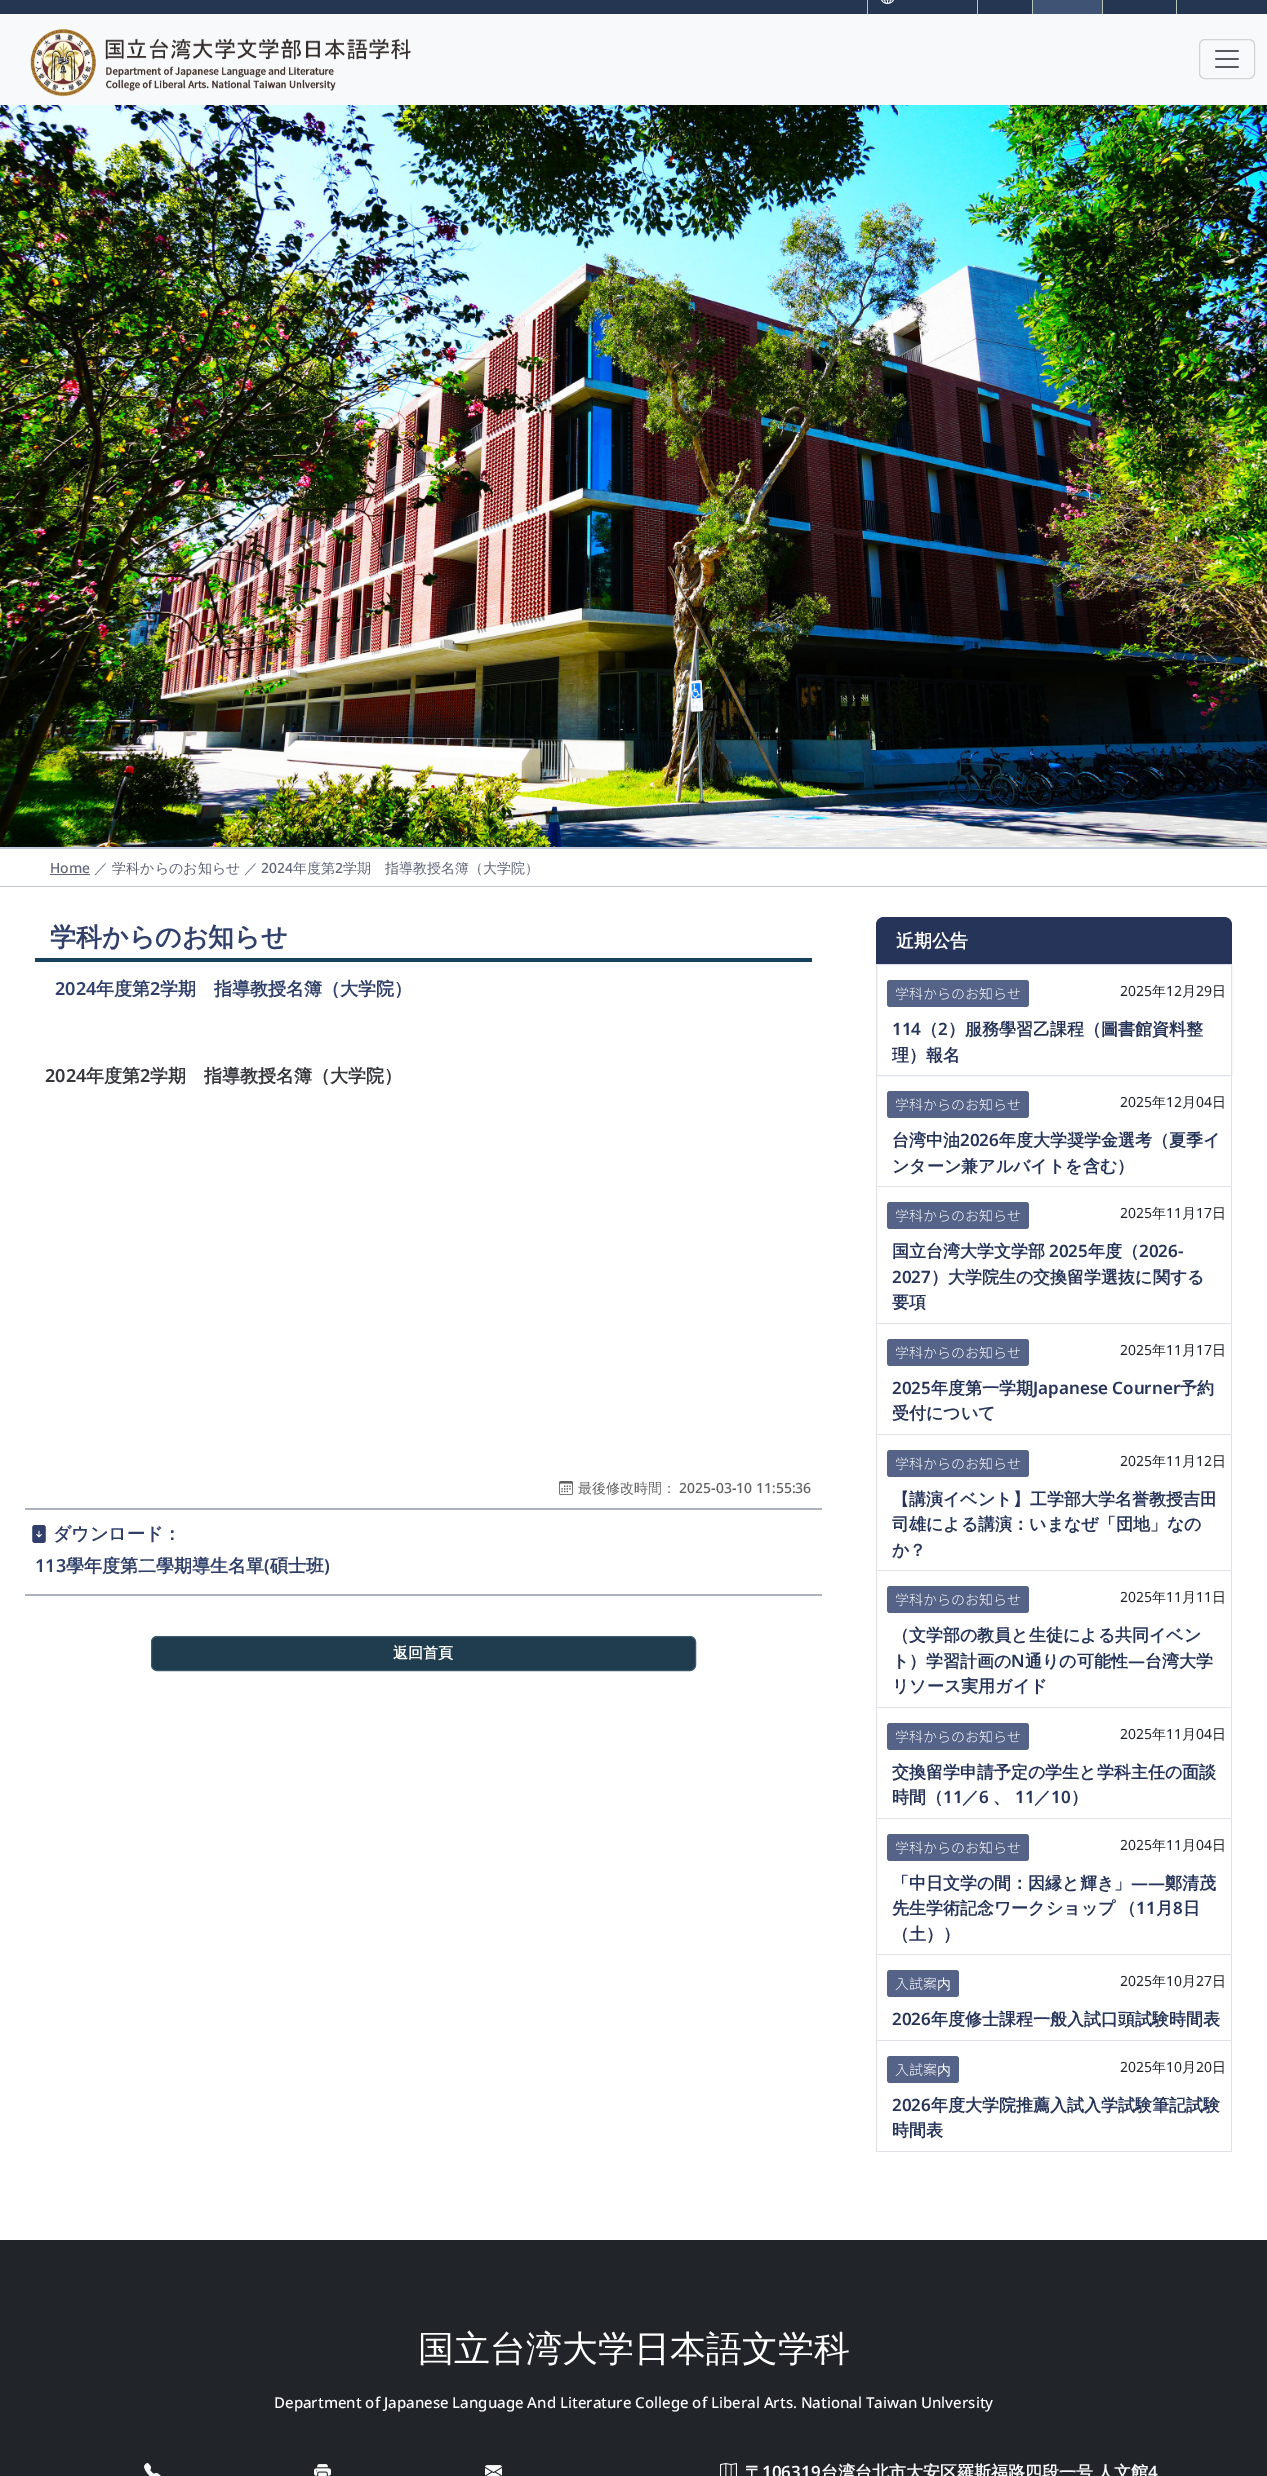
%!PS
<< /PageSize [1267 2476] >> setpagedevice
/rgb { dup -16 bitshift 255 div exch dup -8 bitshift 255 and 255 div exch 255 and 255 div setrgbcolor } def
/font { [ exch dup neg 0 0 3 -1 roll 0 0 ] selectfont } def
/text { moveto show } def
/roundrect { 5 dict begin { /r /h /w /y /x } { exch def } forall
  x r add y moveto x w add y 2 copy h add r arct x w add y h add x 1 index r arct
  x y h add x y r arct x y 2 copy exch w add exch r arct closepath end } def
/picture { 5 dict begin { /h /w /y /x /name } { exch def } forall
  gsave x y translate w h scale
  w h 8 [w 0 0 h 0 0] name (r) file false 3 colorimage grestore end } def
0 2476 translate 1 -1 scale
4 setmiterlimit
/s1 { /NotoSans-Medium 14 font 16#5E6578 rgb } def
/s2 { /WenQuanYiZenHei-Medium 14 font 16#5E6578 rgb } def
/s3 { /WenQuanYiZenHei-Bold 26 font 16#30406B rgb } def
/s4 { /NotoSans-SemiBold 18 font 16#30406B rgb } def
/s5 { /WenQuanYiZenHei-Bold 18 font 16#30406B rgb } def
/s6 { /NotoSans-SemiBold 18 font 16#35373B rgb } def
/s7 { /WenQuanYiZenHei-Bold 18 font 16#35373B rgb } def
/s8 { /WenQuanYiZenHei-Medium 14 font 16#616161 rgb } def
/s9 { /NotoSans-Medium 14 font 16#616161 rgb } def
/s10 { /WenQuanYiZenHei-Bold 15 font 16#FFFFFF rgb } def
/s11 { /WenQuanYiZenHei-Bold 18 font 16#FFFFFF rgb } def
/s12 { /NotoSansTC-Light 14 font 16#FFFFFF rgb } def
/s13 { /NotoSans-Regular 14 font 16#212529 rgb } def
/s14 { /WenQuanYiZenHei-Medium 14 font 16#212529 rgb } def
/s15 { /NotoSans-SemiBold 17 font 16#263459 rgb } def
/s16 { /WenQuanYiZenHei-Bold 17 font 16#263459 rgb } def
/s17 { /WenQuanYiZenHei-Medium 14 font 16#FFFFFF rgb } def
/s18 { /WenQuanYiZenHei-Medium 36 font 16#FFFFFF rgb } def
/s19 { /NotoSans-Medium 15 font 16#FFFFFF rgb } def
/s20 { /WenQuanYiZenHei-Bold 17 font 16#F8F9FA rgb } def
/s21 { /NotoSans-SemiBold 17 font 16#F8F9FA rgb } def
16#FFFFFF rgb
0 0 1267 2476 rectfill
16#243651 rgb
0 0 1267 14 rectfill
16#BAC6B9 rgb
867 0 1 14 rectfill
(pic1.raw) 881 0 13 4 picture
977 0 1 14 rectfill
16#3F5474 rgb
1033 0 69 14 rectfill
16#BAC6B9 rgb
1102 0 1 14 rectfill
1032 0 1 14 rectfill
1176 0 1 14 rectfill
16#F8F9FA rgb
0 14 1267 91 rectfill
(pic2.raw) 30 29 381 68 picture
16#D3D4D5 rgb
1199.5 39.5 55 39 5.5 roundrect stroke
(pic3.raw) 1215 50 24 18 picture
(pic4.raw) 0 105 1267 742 picture
16#C1C9DF rgb
0 847 1267 2 rectfill
0 886 1267 1 rectfill
s1
(Home) 50 873 text
50 874 40 1 rectfill
s2
(／ 学科からのお知らせ ／) 94 873 text
s1
(2024) 261 873 text
s2
(年度第) 293 873 text
s1
(2) 335 873 text
s2
(学期　指導教授名簿（大学院）) 343 873 text
16#154360 rgb
35 958 777 4 rectfill
s3
(学科からのお知らせ) 50 946 text
s4
(2024) 55 995 text
s5
(年度第) 96 995 text
s4
(2) 150 995 text
s5
(学期　指導教授名簿（大学院）) 160 995 text
s6
(2024) 45 1082 text
s7
(年度第) 86 1082 text
s6
(2) 140 1082 text
s7
(学期　指導教授名簿（大学院）) 150 1082 text
(pic5.raw) 559 1481 14 14 picture
s8
(最後修改時間：) 578 1493 text
s9
(2025-03-10 11:55:36) 679 1493 text
16#ACB1C0 rgb
25 1508 797 2 rectfill
25 1594 797 2 rectfill
(pic6.raw) 32 1525 14 18 picture
s5
(ダウンロード：) 53 1540 text
s4
(113) 35 1572 text
s5
(學年度第二學期導生名單) 66 1572 text
s4
(\() 264 1572 text
s5
(碩士班) 270 1572 text
s4
(\)) 324 1572 text
16#1F3D4F rgb
151.5 1636.5 544 34 5.5 roundrect gsave fill grestore
16#3C5B6E rgb
stroke
s10
(返回首頁) 393 1658 text
16#263459 rgb
884 917 moveto 1224 917 lineto 1228.5 917 1232 920.5 1232 925 curveto 1232 964 lineto 876 964 lineto 876 925 lineto 876 920.5 879.5 917 884 917 curveto closepath fill
s11
(近期公告) 896 947 text
16#DEE2E6 rgb
876.5 964.5 355 111 rectstroke
16#556388 rgb
887 980 142 27 3 roundrect fill
s12
(学科からのお知らせ) 895 999 text
s13
(2025) 1120 996 text
s14
(年) 1152 996 text
s13
(12) 1166 996 text
s14
(月) 1182 996 text
s13
(29) 1196 996 text
s14
(日) 1212 996 text
s15
(114) 892 1035 text
s16
(（) 921 1035 text
s15
(2) 938 1035 text
s16
(）服務學習乙課程（圖書館資料整) 948 1035 text
(理）報名) 892 1061 text
16#DEE2E6 rgb
1231 1076 1 1076 rectfill
876 1186 356 1 rectfill
876 1076 1 111 rectfill
16#556388 rgb
887 1091 142 27 3 roundrect fill
s12
(学科からのお知らせ) 895 1110 text
s13
(2025) 1120 1107 text
s14
(年) 1152 1107 text
s13
(12) 1166 1107 text
s14
(月) 1182 1107 text
s13
(04) 1196 1107 text
s14
(日) 1212 1107 text
s16
(台湾中油) 892 1146 text
s15
(2026) 960 1146 text
s16
(年度大学奨学金選考（夏季イ) 999 1146 text
(ンターン兼アルバイトを含む）) 892 1172 text
16#DEE2E6 rgb
876 1323 356 1 rectfill
876 1187 1 137 rectfill
16#556388 rgb
887 1202 142 27 3 roundrect fill
s12
(学科からのお知らせ) 895 1221 text
s13
(2025) 1120 1218 text
s14
(年) 1152 1218 text
s13
(11) 1166 1218 text
s14
(月) 1182 1218 text
s13
(17) 1196 1218 text
s14
(日) 1212 1218 text
s16
(国立台湾大学文学部) 892 1257 text
s15
(2025) 1049 1257 text
s16
(年度（) 1088 1257 text
s15
(2026-) 1139 1257 text
(2027) 892 1283 text
s16
(）大学院生の交換留学選抜に関する) 931 1283 text
(要項) 892 1308 text
16#DEE2E6 rgb
876 1434 356 1 rectfill
876 1324 1 111 rectfill
16#556388 rgb
887 1339 142 27 3 roundrect fill
s12
(学科からのお知らせ) 895 1358 text
s13
(2025) 1120 1355 text
s14
(年) 1152 1355 text
s13
(11) 1166 1355 text
s14
(月) 1182 1355 text
s13
(17) 1196 1355 text
s14
(日) 1212 1355 text
s15
(2025) 892 1394 text
s16
(年度第一学期) 931 1394 text
s15
(Japanese Courner) 1033 1394 text
s16
(予約) 1180 1394 text
(受付について) 892 1419 text
16#DEE2E6 rgb
876 1570 356 1 rectfill
876 1435 1 136 rectfill
16#556388 rgb
887 1450 142 27 3 roundrect fill
s12
(学科からのお知らせ) 895 1469 text
s13
(2025) 1120 1466 text
s14
(年) 1152 1466 text
s13
(11) 1166 1466 text
s14
(月) 1182 1466 text
s13
(12) 1196 1466 text
s14
(日) 1212 1466 text
s16
(【講演イベント】工学部大学名誉教授吉田) 892 1505 text
(司雄による講演：いまなぜ「団地」なの) 892 1530 text
(か？) 892 1556 text
16#DEE2E6 rgb
876 1707 356 1 rectfill
876 1571 1 137 rectfill
16#556388 rgb
887 1586 142 27 3 roundrect fill
s12
(学科からのお知らせ) 895 1605 text
s13
(2025) 1120 1602 text
s14
(年) 1152 1602 text
s13
(11) 1166 1602 text
s14
(月) 1182 1602 text
s13
(11) 1196 1602 text
s14
(日) 1212 1602 text
s16
(（文学部の教員と生徒による共同イベン) 892 1641 text
(ト）学習計画の) 892 1667 text
s15
(N) 1011 1667 text
s16
(通りの可能性) 1025 1667 text
s15
(—) 1128 1667 text
s16
(台湾大学) 1145 1667 text
(リソース実用ガイド) 892 1692 text
16#DEE2E6 rgb
876 1818 356 1 rectfill
876 1708 1 111 rectfill
16#556388 rgb
887 1723 142 27 3 roundrect fill
s12
(学科からのお知らせ) 895 1742 text
s13
(2025) 1120 1739 text
s14
(年) 1152 1739 text
s13
(11) 1166 1739 text
s14
(月) 1182 1739 text
s13
(04) 1196 1739 text
s14
(日) 1212 1739 text
s16
(交換留学申請予定の学生と学科主任の面談) 892 1778 text
(時間（) 892 1803 text
s15
(11) 943 1803 text
s16
(／) 962 1803 text
s15
(6) 979 1803 text
s16
(、) 993 1803 text
s15
(11) 1015 1803 text
s16
(／) 1034 1803 text
s15
(10) 1051 1803 text
s16
(）) 1071 1803 text
16#DEE2E6 rgb
876 1954 356 1 rectfill
876 1819 1 136 rectfill
16#556388 rgb
887 1834 142 27 3 roundrect fill
s12
(学科からのお知らせ) 895 1853 text
s13
(2025) 1120 1850 text
s14
(年) 1152 1850 text
s13
(11) 1166 1850 text
s14
(月) 1182 1850 text
s13
(04) 1196 1850 text
s14
(日) 1212 1850 text
s16
(「中日文学の間：因縁と輝き」) 892 1889 text
s15
(——) 1131 1889 text
s16
(鄭清茂) 1165 1889 text
892 1914 moveto -1 0 32 (先生学術記念ワークショップ （) widthshow
s15
(11) 1136 1914 text
s16
(月) 1156 1914 text
s15
(8) 1173 1914 text
s16
(日) 1183 1914 text
(（土））) 892 1940 text
16#DEE2E6 rgb
876 2040 356 1 rectfill
876 1955 1 86 rectfill
16#556388 rgb
887 1970 72 27 3 roundrect fill
s12
(入試案) 895 1989 text
s17
(内) 937 1989 text
s13
(2025) 1120 1986 text
s14
(年) 1152 1986 text
s13
(10) 1166 1986 text
s14
(月) 1182 1986 text
s13
(27) 1196 1986 text
s14
(日) 1212 1986 text
s15
(2026) 892 2025 text
s16
(年度修士課程一般入試口頭試験時間表) 931 2025 text
16#DEE2E6 rgb
876 2151 356 1 rectfill
876 2041 1 111 rectfill
16#556388 rgb
887 2056 72 27 3 roundrect fill
s12
(入試案) 895 2075 text
s17
(内) 937 2075 text
s13
(2025) 1120 2072 text
s14
(年) 1152 2072 text
s13
(10) 1166 2072 text
s14
(月) 1182 2072 text
s13
(20) 1196 2072 text
s14
(日) 1212 2072 text
s15
(2026) 892 2111 text
s16
(年度大学院推薦入試入学試験筆記試験) 931 2111 text
(時間表) 892 2136 text
16#212529 rgb
0 2240 1267 236 rectfill
s18
(国立台湾大学日本語文学科) 418 2361 text
s19
(Department of Japanese Language And Literature College of Liberal Arts. National Taiwan Unlversity) 274 2408 text
(pic7.raw) 144 2463 17 13 picture
(pic8.raw) 314 2464 17 12 picture
(pic9.raw) 485 2465 17 11 picture
(pic10.raw) 720 2463 17 13 picture
s20
(〒) 745 2478 text
s21
(106319) 762 2478 text
/WenQuanYiZenHei-Bold 17 font
821 2478 moveto -1 0 32 (台湾台北市大安区羅斯福路四段一号 人文館) widthshow
s21
(4) 1148 2478 text
showpage
